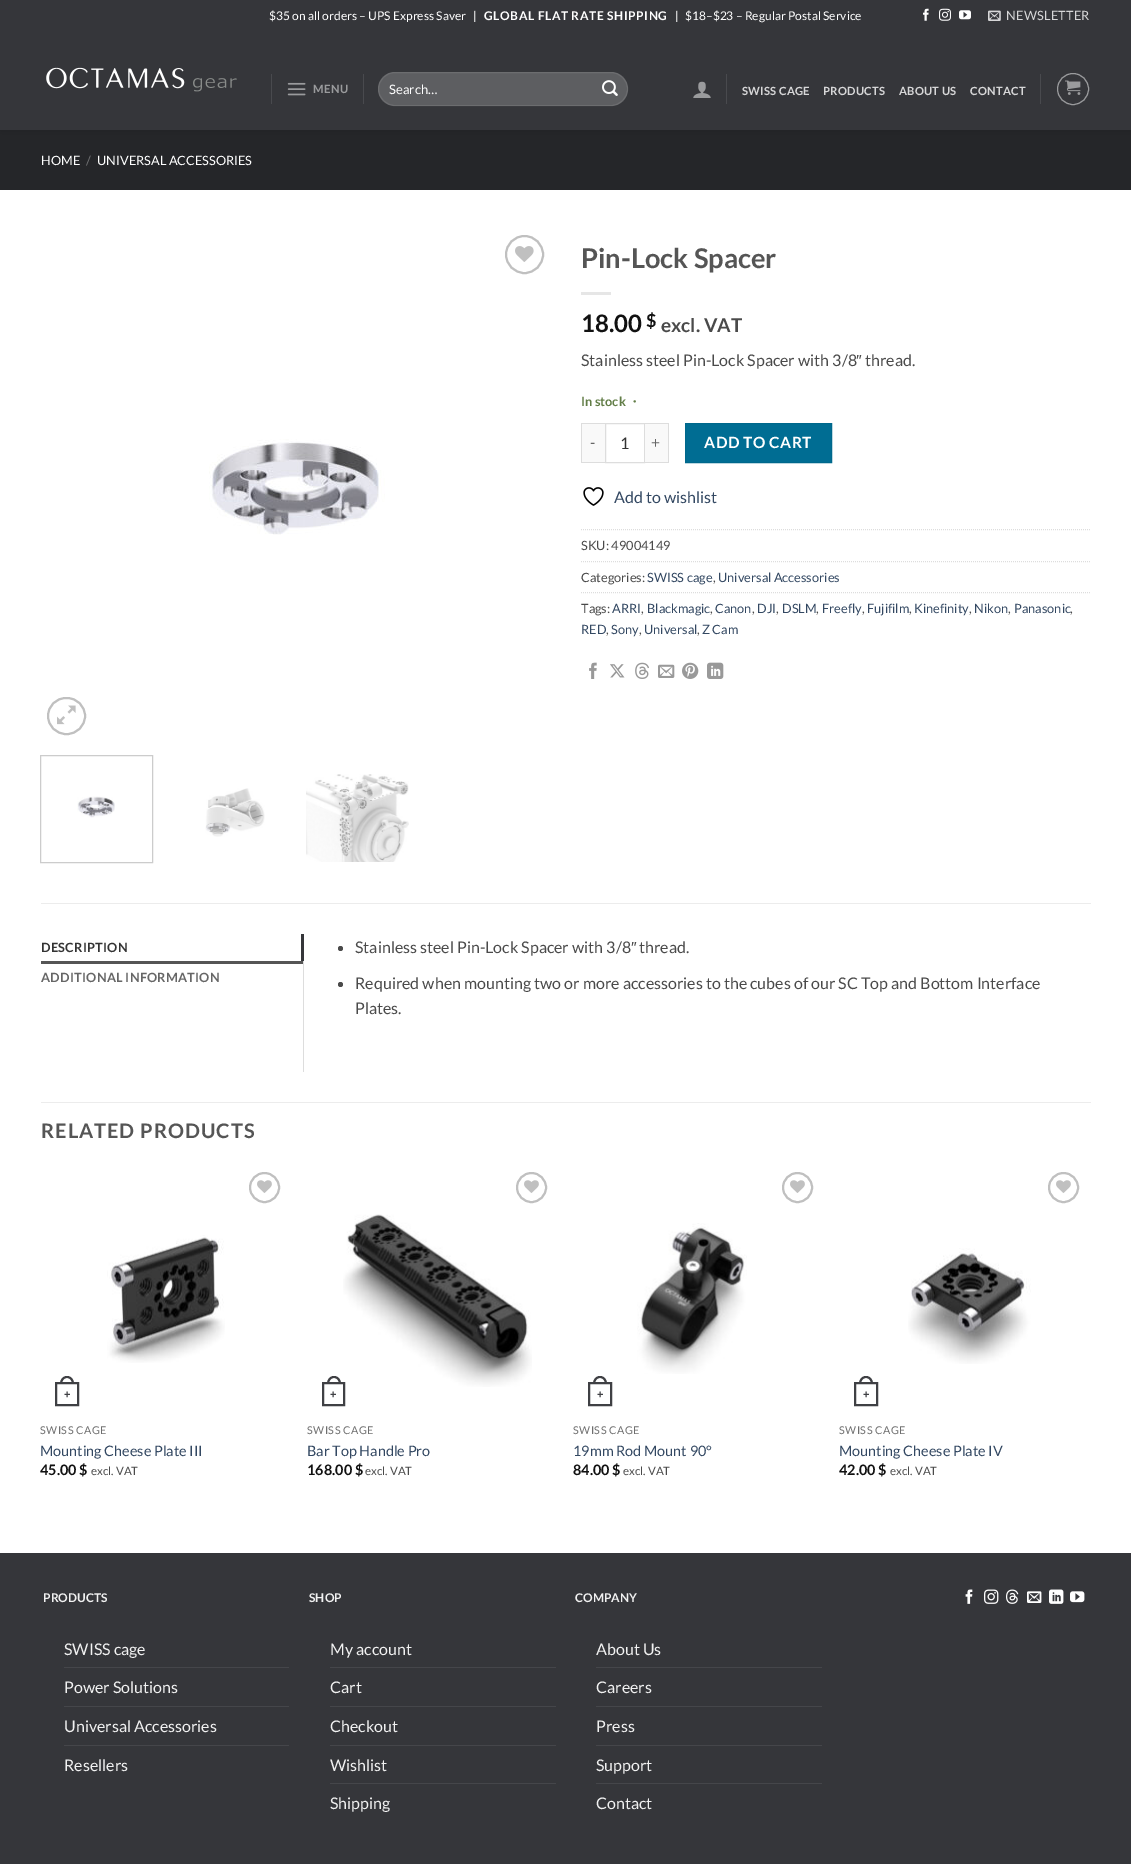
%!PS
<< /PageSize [1131 1864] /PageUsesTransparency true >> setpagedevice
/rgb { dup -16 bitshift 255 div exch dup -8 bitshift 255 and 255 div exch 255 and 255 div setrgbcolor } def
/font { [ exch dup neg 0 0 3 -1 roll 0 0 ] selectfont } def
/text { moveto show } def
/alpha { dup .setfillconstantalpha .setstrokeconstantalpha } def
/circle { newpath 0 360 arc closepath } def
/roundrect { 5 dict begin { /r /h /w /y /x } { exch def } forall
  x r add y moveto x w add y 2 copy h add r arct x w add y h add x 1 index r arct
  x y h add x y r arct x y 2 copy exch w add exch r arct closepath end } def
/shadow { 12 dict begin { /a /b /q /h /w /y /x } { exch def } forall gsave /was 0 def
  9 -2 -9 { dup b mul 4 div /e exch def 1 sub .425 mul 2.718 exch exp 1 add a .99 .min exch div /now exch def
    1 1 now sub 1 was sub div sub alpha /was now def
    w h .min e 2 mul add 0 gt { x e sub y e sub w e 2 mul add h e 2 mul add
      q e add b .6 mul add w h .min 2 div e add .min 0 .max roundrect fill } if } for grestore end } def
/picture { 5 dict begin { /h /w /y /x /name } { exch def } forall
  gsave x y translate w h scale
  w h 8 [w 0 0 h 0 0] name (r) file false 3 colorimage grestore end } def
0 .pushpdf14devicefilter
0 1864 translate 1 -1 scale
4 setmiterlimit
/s1 { /Lato-Regular 12 font 16#FFFFFF rgb } def
/s2 { /Lato-Regular 13 font 16#FFFFFF rgb } def
/s3 { /Lato-Regular 12.75 font 16#FFFFFF rgb } def
/s4 { /Lato-Regular 12.75 font 16#717274 rgb } def
/s5 { /Lato-Bold 27.25 font 16#555555 rgb } def
/s6 { /Lato-Bold 24 font 16#111111 rgb } def
/s7 { /Lato-Bold 18 font 16#111111 rgb } def
/s8 { /Lato-Bold 19 font 16#4A4A4A rgb } def
/s9 { /Lato-Regular 16 font 16#4A4A4A rgb } def
/s10 { /LiberationSans-Regular 16 font 16#4A4A4A rgb } def
/s11 { /Lato-Bold 12.75 font 16#627D47 rgb } def
/s12 { /WenQuanYiZenHei-Bold 12.75 font 16#627D47 rgb } def
/s13 { /Lato-Regular 16 font 16#333333 rgb } def
/s14 { /Lato-Regular 16 font 16#334862 rgb } def
/s15 { /Lato-Regular 12.75 font 16#4A4A4A rgb } def
/s16 { /Lato-Regular 12.75 font 16#334862 rgb } def
/s17 { /LiberationSans-Bold 11 font 16#3F4044 rgb } def
/s18 { /Lato-Regular 14.4 font 16#334862 rgb } def
/s19 { /Lato-Bold 14.4 font 16#111111 rgb } def
/s20 { /Lato-Regular 11.5 font 16#4A4A4A rgb } def
/s21 { /Lato-Bold 12 font 16#F1F1F1 rgb } def
/s22 { /Lato-Regular 16 font 16#F1F1F1 rgb } def
16#FFFFFF rgb
0 0 1131 1864 rectfill
16#252629 rgb
0 130 1131 60 rectfill
16#000000 rgb
1 1 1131 130 0 5 0.15 shadow
16#35363A rgb
0 0 1131 130 rectfill
s1
($35 on all orders – UPS Express Saver   |) 269 20 text
/Lato-Bold 12 font
484 20 moveto 0.6 0 (GLOBAL FLAT RATE SHIPPING) ashow
s1
(|) 675 20 text
($18–$23 – Regular Postal Service) 685 20 text
(pic1.raw) 923 8 6 13 picture
(pic2.raw) 939 8 12 13 picture
(pic3.raw) 959 10 12 10 picture
(pic4.raw) 988 10 13 11 picture
/Lato-Regular 12.75 font
16#D7D7D8 rgb
1006 20 moveto 0.25 0 (NEWSLETTER) ashow
(pic5.raw) 46 67 191 25 picture
16#494A4E rgb
271 74 1 30 rectfill
(pic6.raw) 287 82 19 14 picture
/Lato-Bold 11.25 font
16#9A9B9D rgb
313 93 moveto 0.5 0 (MENU) ashow
16#494A4E rgb
363 74 1 30 rectfill
16#5D5E61 rgb
378 72 250 34 17 roundrect fill
0.09 alpha
16#FFFFFF rgb
378.5 72.5 249 33 16.5 roundrect stroke
1 alpha
s2
(Search…) 389 94 text
(pic7.raw) 602 80 16 16 picture
(pic8.raw) 693 81 18 17 picture
16#494A4E rgb
726 74 1 30 rectfill
/Lato-Bold 11.25 font
16#D7D7D8 rgb
742 95 moveto 0.25 0 (SWISS CAGE) ashow
823 95 moveto 0.25 0 (PRODUCTS) ashow
899 95 moveto 0.25 0 (ABOUT US) ashow
970 95 moveto 0.25 0 (CONTACT) ashow
16#494A4E rgb
1040 74 1 30 rectfill
16#9A9B9D rgb
1073 89 15.5 circle stroke
(pic9.raw) 1065 80 16 15 picture
s3
(HOME) 41 165 text
s4
(/) 86 165 text
s3
(UNIVERSAL ACCESSORIES) 97 165 text
16#C0C0C0 rgb
2 setlinewidth
524.5 254.5 18.5 circle stroke
(pic10.raw) 515 246 19 16 picture
(pic11.raw) 209 439 176 96 picture
48 698 37 36 18 roundrect stroke
(pic12.raw) 57 705 19 20 picture
16#CCCCCC rgb
1 setlinewidth
40.5 755.5 112 107 rectstroke
(pic13.raw) 77 796 38 22 picture
(pic14.raw) 205 788 60 49 picture
(pic15.raw) 306 774 103 88 picture
s5
(Pin-Lock Spacer) 581 268 text
16#E6E6E6 rgb
581 292 30 3 rectfill
s6
(18.00) 581 332 text
s7
($) 646 327 text
s8
(excl. VAT) 661 332 text
s9
(Stainless steel Pin-Lock Spacer with 3/8) 581 366 text
s10
(″) 856 366 text
s9
(thread.) 865 366 text
s11
(In stock) 581 406 text
s12
(・) 628 406 text
16#F9F9F9 rgb
582 424 23 38 rectfill
16#DDDDDD rgb
581 423 24 1 rectfill
581 462 24 1 rectfill
581 423 1 40 rectfill
/Lato-Regular 15.5 font
16#666666 rgb
590 448 moveto 0.5 0 (-) ashow
16#DDDDDD rgb
605.5 423.5 39 39 rectstroke
s13
(1) 620 449 text
16#F9F9F9 rgb
645 424 23 38 rectfill
16#DDDDDD rgb
645 423 24 1 rectfill
668 423 1 40 rectfill
645 462 24 1 rectfill
/Lato-Regular 15.5 font
16#666666 rgb
651 448 moveto 0.5 0 (+) ashow
16#006D93 rgb
685.5 423.5 moveto 831.5 423.5 lineto 831.5 462.5 lineto 685.5 462.5 lineto closepath gsave fill grestore
16#00688C rgb
stroke
/Lato-Bold 15.5 font
16#FFFFFF rgb
704 448 moveto 0.5 0 (ADD TO CART) ashow
(pic16.raw) 583 487 21 19 picture
s14
(Add to wishlist) 614 503 text
16#DDDDDD rgb
[1 1] 0 setdash
581 529.5 moveto 1091 529.5 lineto stroke
s15
(SKU: 49004149) 581 550 text
16#DDDDDD rgb
581 561.5 moveto 1091 561.5 lineto stroke
s15
(Categories:) 581 582 text
s16
(SWISS cage) 647 582 text
s15
(,) 713 582 text
s16
(Universal Accessories) 718 582 text
16#DDDDDD rgb
581 592.5 moveto 1091 592.5 lineto stroke
s15
(Tags:) 581 613 text
s16
(ARRI) 612 613 text
s15
(,) 641 613 text
s16
(Blackmagic) 647 613 text
s15
(,) 710 613 text
s16
(Canon) 715 613 text
s15
(,) 752 613 text
s16
(DJI) 757 613 text
s15
(,) 776 613 text
s16
(DSLM) 782 613 text
s15
(,) 816 613 text
s16
(Freefly) 822 613 text
s15
(,) 862 613 text
s16
(Fujifilm) 867 613 text
s15
(,) 909 613 text
s16
(Kinefinity) 914 613 text
s15
(,) 969 613 text
s16
(Nikon) 974 613 text
s15
(,) 1008 613 text
s16
(Panasonic) 1014 613 text
s15
(,) 1070 613 text
s16
(RED) 581 634 text
s15
(,) 606 634 text
s16
(Sony) 611 634 text
s15
(,) 639 634 text
s16
(Universal) 644 634 text
s15
(,) 697 634 text
s16
(Z Cam) 702 634 text
(pic17.raw) 589 662 8 17 picture
(pic18.raw) 610 664 15 14 picture
(pic19.raw) 635 662 14 17 picture
(pic20.raw) 658 664 17 14 picture
(pic21.raw) 682 662 17 17 picture
(pic22.raw) 707 662 17 17 picture
16#ECECEC rgb
41 903 1050 1 rectfill
/Lato-Bold 12.75 font
16#333333 rgb
41 952 moveto 0.25 0 (DESCRIPTION) ashow
16#35363A rgb
301 934 3 27 rectfill
16#555555 rgb
41 961 262 3 rectfill
16#666666 rgb
41 982 moveto 0.25 0 (ADDITIONAL INFORMATION) ashow
16#DDDDDD rgb
303 961 1 111 rectfill
s9
(Stainless steel Pin-Lock Spacer with 3/8) 355 953 text
s10
(″) 631 953 text
s9
(thread.) 639 953 text
340.5 948.5 2.5 circle fill
340.5 984.5 2.5 circle fill
(Required when mounting two or more accessories to the cubes of our SC Top and Bottom Interface) 355 989 text
(Plates.) 355 1014 text
16#ECECEC rgb
41 1102 1050 1 rectfill
/Lato-Bold 20 font
16#555555 rgb
41 1138 moveto 1 0 (RELATED PRODUCTS) ashow
16#C0C0C0 rgb
2 setlinewidth
[] 0 setdash
264.5 1187.5 14.5 circle stroke
(pic23.raw) 257 1180 15 13 picture
(pic24.raw) 107 1235 118 128 picture
16#3F4044 rgb
56 1383 22 22 rectstroke
67 1376 moveto 71.5 1376 74 1380 74 1384 curveto 60 1384 lineto 60 1380 62.5 1376 67 1376 curveto closepath 67 1378 moveto 70.5 1378 72 1381 72 1384 curveto 62 1384 lineto 62 1381 63.5 1378 67 1378 curveto closepath eofill
s17
(+) 64 1398 text
/Lato-Regular 10.75 font
16#6E6E6E rgb
40 1434 moveto 0.5 0 (SWISS CAGE) ashow
s18
(Mounting Cheese Plate III) 40 1456 text
s19
(45.00 $) 40 1475 text
s20
(excl. VAT) 91 1475 text
16#C0C0C0 rgb
531.5 1187.5 14.5 circle stroke
(pic23.raw) 524 1180 15 13 picture
(pic25.raw) 343 1214 189 173 picture
16#3F4044 rgb
323 1383 21 22 rectstroke
334 1376 moveto 338.5 1376 341 1380 341 1384 curveto 327 1384 lineto 327 1380 329.5 1376 334 1376 curveto closepath 334 1378 moveto 337.5 1378 339 1381 339 1384 curveto 329 1384 lineto 329 1381 330.5 1378 334 1378 curveto closepath eofill
s17
(+) 330 1398 text
/Lato-Regular 10.75 font
16#6E6E6E rgb
307 1434 moveto 0.5 0 (SWISS CAGE) ashow
s18
(Bar Top Handle Pro) 307 1456 text
s19
(168.00 $) 307 1475 text
s20
(excl. VAT) 365 1475 text
16#C0C0C0 rgb
797.5 1187.5 14.5 circle stroke
(pic23.raw) 790 1180 15 13 picture
(pic26.raw) 637 1223 110 151 picture
16#3F4044 rgb
589 1383 22 22 rectstroke
600 1376 moveto 604.5 1376 607 1380 607 1384 curveto 593 1384 lineto 593 1380 595.5 1376 600 1376 curveto closepath 600 1378 moveto 603.5 1378 605 1381 605 1384 curveto 595 1384 lineto 595 1381 596.5 1378 600 1378 curveto closepath eofill
s17
(+) 597 1398 text
/Lato-Regular 10.75 font
16#6E6E6E rgb
573 1434 moveto 0.5 0 (SWISS CAGE) ashow
s18
(19mm Rod Mount 90°) 573 1456 text
s19
(84.00 $) 573 1475 text
s20
(excl. VAT) 623 1475 text
16#C0C0C0 rgb
1063.5 1187.5 14.5 circle stroke
(pic23.raw) 1056 1180 15 13 picture
(pic27.raw) 908 1248 123 116 picture
16#3F4044 rgb
855 1383 22 22 rectstroke
866 1376 moveto 870.5 1376 873 1380 873 1384 curveto 859 1384 lineto 859 1380 861.5 1376 866 1376 curveto closepath 866 1378 moveto 869.5 1378 871 1381 871 1384 curveto 861 1384 lineto 861 1381 862.5 1378 866 1378 curveto closepath eofill
s17
(+) 863 1398 text
/Lato-Regular 10.75 font
16#6E6E6E rgb
839 1434 moveto 0.5 0 (SWISS CAGE) ashow
s18
(Mounting Cheese Plate IV) 839 1456 text
s19
(42.00 $) 839 1475 text
s20
(excl. VAT) 890 1475 text
16#35363A rgb
0 1553 1131 311 rectfill
s21
(PRODUCTS) 43 1602 text
s22
(SWISS cage) 64 1655 text
16#45464A rgb
64 1667 225 1 rectfill
s22
(Power Solutions) 64 1693 text
16#45464A rgb
64 1706 225 1 rectfill
s22
(Universal Accessories) 64 1732 text
16#45464A rgb
64 1745 225 1 rectfill
s22
(Resellers) 64 1771 text
s21
(SHOP) 309 1602 text
s22
(My account) 330 1655 text
16#45464A rgb
330 1667 226 1 rectfill
s22
(Cart) 330 1693 text
16#45464A rgb
330 1706 226 1 rectfill
s22
(Checkout) 330 1732 text
16#45464A rgb
330 1745 226 1 rectfill
s22
(Wishlist) 330 1771 text
16#45464A rgb
330 1783 226 1 rectfill
s22
(Shipping) 330 1809 text
s21
(COMPANY) 575 1602 text
s22
(About Us) 596 1655 text
16#45464A rgb
596 1667 226 1 rectfill
s22
(Careers) 596 1693 text
16#45464A rgb
596 1706 226 1 rectfill
s22
(Press) 596 1732 text
16#45464A rgb
596 1745 226 1 rectfill
s22
(Support) 596 1771 text
16#45464A rgb
596 1783 226 1 rectfill
s22
(Contact) 596 1809 text
(pic28.raw) 965 1589 8 15 picture
(pic29.raw) 984 1589 15 15 picture
(pic30.raw) 1006 1589 13 15 picture
(pic31.raw) 1027 1591 15 12 picture
(pic32.raw) 1049 1589 15 15 picture
(pic33.raw) 1070 1591 15 12 picture
.poppdf14devicefilter showpage
